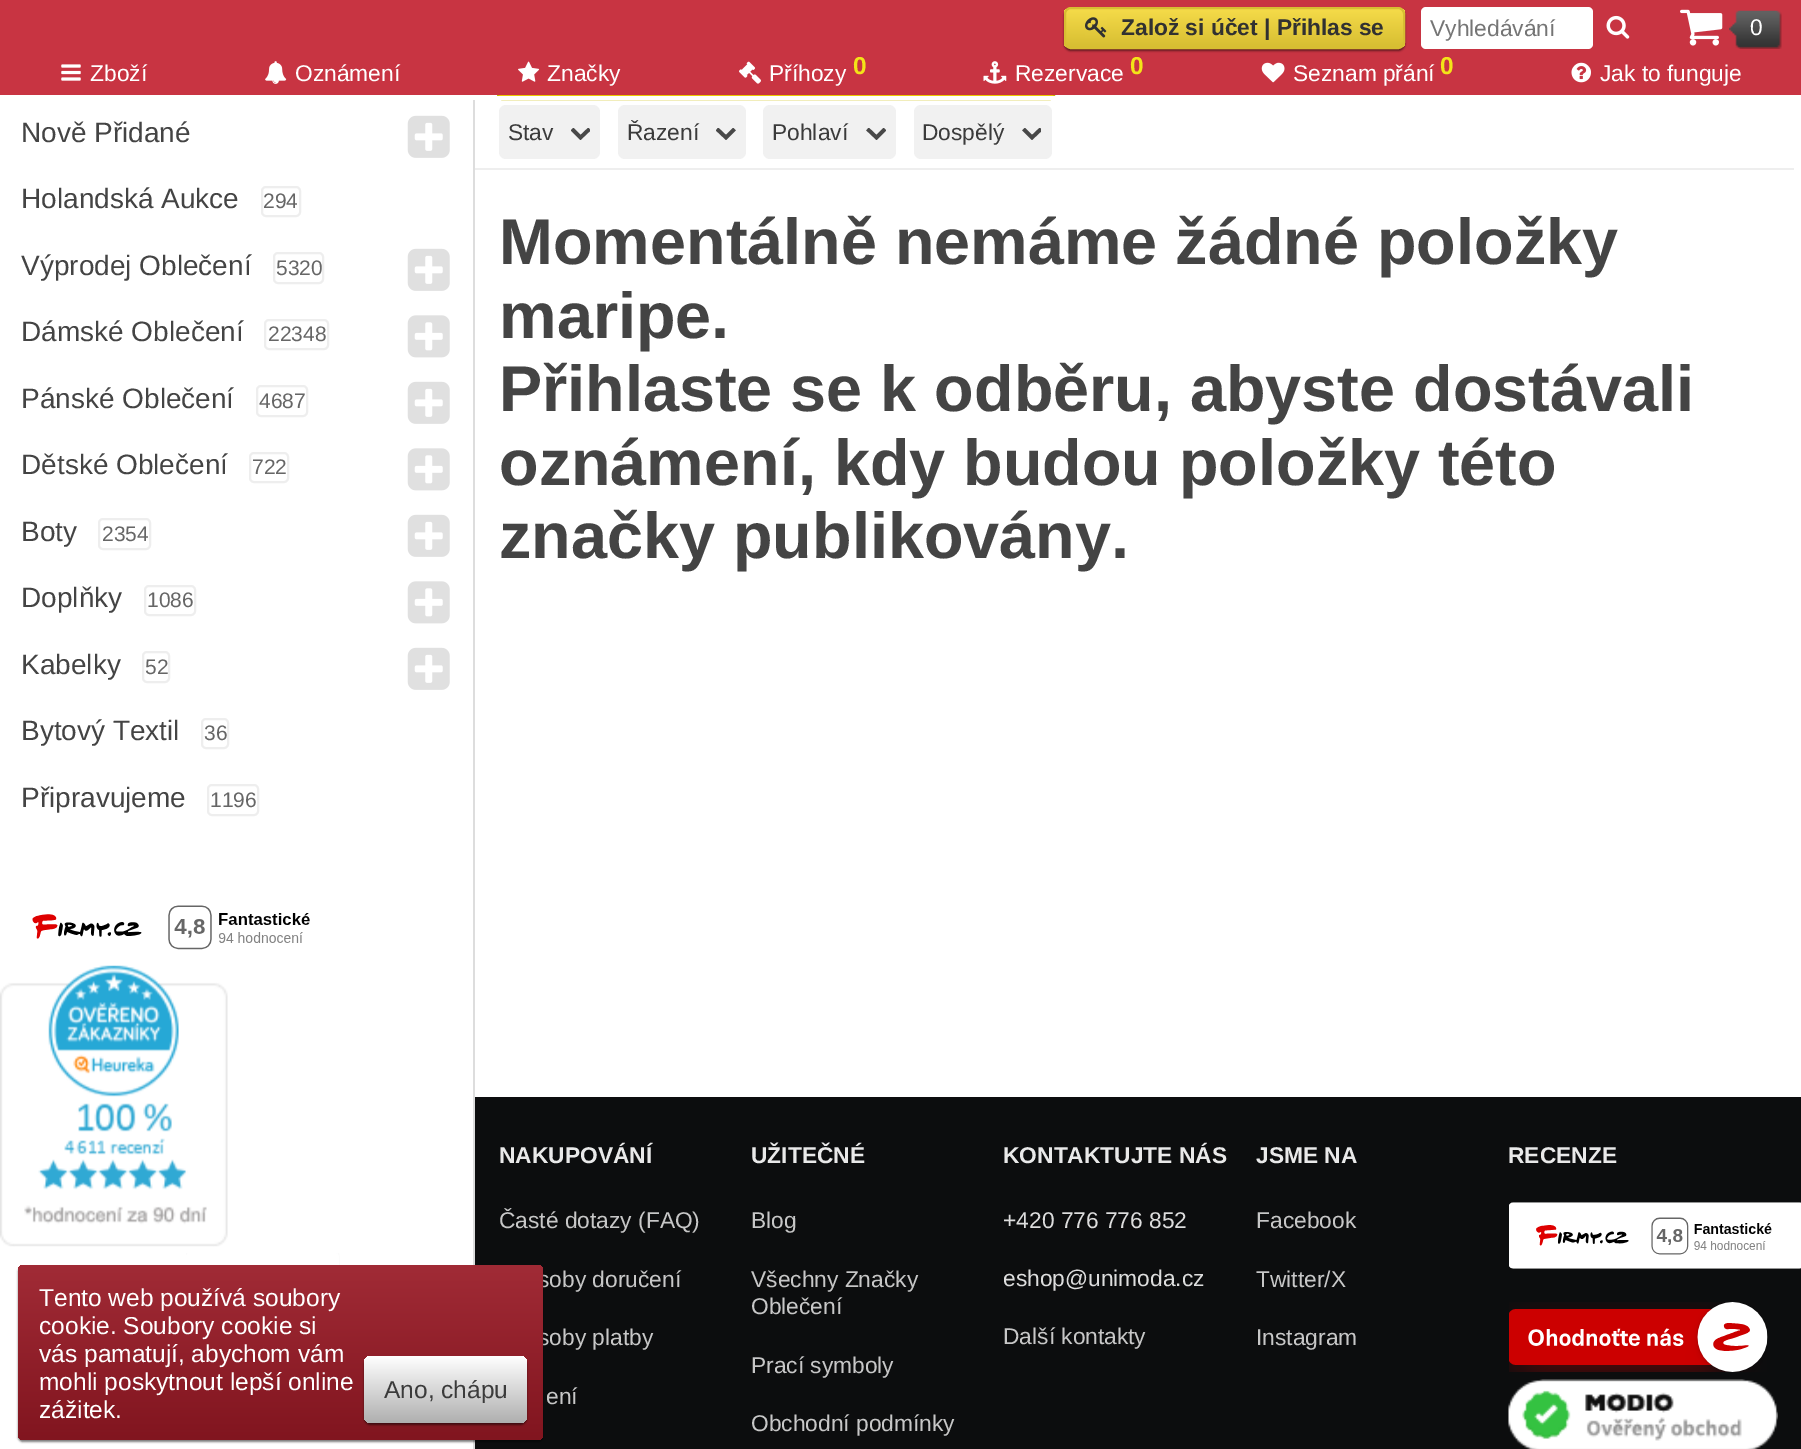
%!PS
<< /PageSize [1801 1449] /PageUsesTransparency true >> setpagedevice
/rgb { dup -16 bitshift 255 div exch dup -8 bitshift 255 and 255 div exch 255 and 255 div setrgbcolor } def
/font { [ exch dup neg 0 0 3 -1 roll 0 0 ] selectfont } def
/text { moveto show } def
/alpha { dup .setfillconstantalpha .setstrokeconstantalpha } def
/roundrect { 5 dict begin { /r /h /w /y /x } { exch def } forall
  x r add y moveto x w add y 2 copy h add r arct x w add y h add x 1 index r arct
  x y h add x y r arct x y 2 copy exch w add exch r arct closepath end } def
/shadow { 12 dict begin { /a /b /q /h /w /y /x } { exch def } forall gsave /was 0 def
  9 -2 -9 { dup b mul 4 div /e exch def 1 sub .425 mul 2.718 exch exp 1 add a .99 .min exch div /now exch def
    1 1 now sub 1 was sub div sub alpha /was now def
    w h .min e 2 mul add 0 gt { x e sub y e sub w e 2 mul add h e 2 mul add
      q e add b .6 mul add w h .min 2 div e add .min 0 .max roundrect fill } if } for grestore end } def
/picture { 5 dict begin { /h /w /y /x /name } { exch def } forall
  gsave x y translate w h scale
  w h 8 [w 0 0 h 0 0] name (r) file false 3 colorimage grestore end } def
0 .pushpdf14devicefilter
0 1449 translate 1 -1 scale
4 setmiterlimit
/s1 { /LiberationSans-Bold 22.75 font 16#313131 rgb } def
/s2 { /LiberationSans-Regular 22.75 font 16#757575 rgb } def
/s3 { /LiberationSans-Regular 22.75 font 16#FFFFFF rgb } def
/s4 { /LiberationSans-Bold 24.5 font 16#F3E418 rgb } def
/s5 { /LiberationSans-Regular 28 font 16#444444 rgb } def
/s6 { /LiberationSans-Regular 21 font 16#666666 rgb } def
/s7 { /LiberationSans-Regular 22.75 font 16#3B3B3B rgb } def
/s8 { /LiberationSans-Bold 64.75 font 16#444444 rgb } def
/s9 { /LiberationSans-Bold 22.75 font 16#E9E9E9 rgb } def
/s10 { /LiberationSans-Regular 22.75 font 16#C7C7C7 rgb } def
/s11 { /LiberationSans-Regular 22.75 font 16#DDDDDD rgb } def
/s12 { /LiberationSans-Regular 24.5 font 16#FFFFFF rgb } def
/s13 { /LiberationSans-Regular 24.5 font 16#3B3B3B rgb } def
16#FFFFFF rgb
0 0 1801 1449 rectfill
gsave 497 95 moveto 1055 95 lineto 1055 96 lineto 497 96 lineto closepath clip newpath
<< /ShadingType 2 /ColorSpace /DeviceRGB /Coords [776 1.7 776 98] /Extend [true true] /Function << /FunctionType 2 /Domain [0 1] /C0 [0.961 0.859 0.286] /C1 [0.925 0.784 0] /N 1 >> >> shfill grestore
16#CCBA00 rgb
2 setlinewidth
498 1 556 98 4 roundrect stroke
16#C83442 rgb
0 0 1801 95 rectfill
16#000000 rgb
1064 9 341 42 7 1 0.52 shadow
gsave
1064 7 341 42 7 roundrect clip newpath
gsave 1064 9 moveto 1405 9 lineto 1405 47 lineto 1064 47 lineto closepath clip newpath
<< /ShadingType 2 /ColorSpace /DeviceRGB /Coords [1235 9 1235 47] /Extend [true true] /Function << /FunctionType 2 /Domain [0 1] /C0 [0.961 0.859 0.286] /C1 [0.843 0.745 0.196] /N 1 >> >> shfill grestore
grestore
16#D7BE32 rgb
1065 8 339 40 6 roundrect stroke
(pic1.raw) 1085 17 22 21 picture
s1
(Založ si účet | Přihlas se) 1121 35 text
16#FFFFFF rgb
1421 7 172 42 5 roundrect fill
s2
(Vyhledávání) 1430 36 text
(pic2.raw) 1606 15 24 24 picture
(pic3.raw) 1680 9 43 37 picture
(pic4.raw) 1729 10 53 39 picture
16#FFFFFF rgb
1750 35 moveto 1 0 (0) ashow
(pic5.raw) 61 64 20 17 picture
(Zboží) 90 81 text
(pic6.raw) 265 61 22 23 picture
(Oznámení) 295 81 text
(pic7.raw) 518 61 22 21 picture
(Značky) 547 81 text
(pic8.raw) 739 61 22 23 picture
(Příhozy) 769 81 text
s4
(0) 853 74 text
(pic9.raw) 983 61 24 23 picture
s3
(Rezervace) 1015 81 text
s4
(0) 1130 74 text
(pic10.raw) 1261 62 24 21 picture
s3
(Seznam přání) 1293 81 text
s4
(0) 1440 74 text
(pic11.raw) 1571 62 20 21 picture
s3
(Jak to funguje) 1600 81 text
16#DDDDDD rgb
473 100 2 1349 rectfill
s5
(Nově Přidané) 21 142 text
(pic12.raw) 407 115 43 43 picture
(Holandská Aukce) 21 208 text
16#EEEEEE rgb
262 187 38 29 4 roundrect stroke
s6
(294) 263 208 text
s5
(Výprodej Oblečení) 21 275 text
16#EEEEEE rgb
274 253 49 30 4 roundrect stroke
s6
(5320) 276 275 text
(pic12.raw) 407 248 43 43 picture
s5
(Dámské Oblečení) 21 341 text
16#EEEEEE rgb
265 320 63 29 4 roundrect stroke
s6
(22348) 268 341 text
(pic13.raw) 407 315 43 43 picture
s5
(Pánské Oblečení) 21 408 text
16#EEEEEE rgb
257 386 50 30 4 roundrect stroke
s6
(4687) 259 408 text
(pic12.raw) 407 381 43 43 picture
s5
(Dětské Oblečení) 21 474 text
16#EEEEEE rgb
250 453 38 29 4 roundrect stroke
s6
(722) 252 474 text
(pic13.raw) 407 448 43 43 picture
s5
(Boty) 21 541 text
16#EEEEEE rgb
99 519 51 30 4 roundrect stroke
s6
(2354) 102 541 text
(pic12.raw) 407 514 43 43 picture
s5
(Doplňky) 21 607 text
16#EEEEEE rgb
145 586 50 29 4 roundrect stroke
s6
(1086) 147 607 text
(pic13.raw) 407 581 43 43 picture
s5
(Kabelky) 21 674 text
16#EEEEEE rgb
143 652 26 30 4 roundrect stroke
s6
(52) 145 674 text
(pic12.raw) 407 647 43 43 picture
s5
(Bytový Textil) 21 740 text
16#EEEEEE rgb
202 719 26 29 4 roundrect stroke
s6
(36) 204 740 text
s5
(Připravujeme) 21 807 text
16#EEEEEE rgb
208 785 50 30 4 roundrect stroke
s6
(1196) 210 807 text
(pic14.raw) 32 905 278 45 picture
(pic15.raw) 0 965 228 282 picture
(pic16.raw) 186 1253 154 12 picture
16#FFFFFF rgb
497 96 558 4 rectfill
16#EEEEEE rgb
475 168 1319 2 rectfill
16#F1F1F1 rgb
499 105 101 54 7 roundrect fill
s7
(Stav) 508 140 text
gsave
571 128 19 12 rectclip
16#484848 rgb
3.7 setlinewidth
589.5 129 moveto 580.5 137.5 lineto 572 129 lineto stroke
grestore
16#F1F1F1 rgb
618 105 128 54 7 roundrect fill
s7
(Řazení) 627 140 text
gsave
716 128 21 12 rectclip
16#484848 rgb
3.7 setlinewidth
734.5 129 moveto 726 137.5 lineto 717 129 lineto stroke
grestore
16#F1F1F1 rgb
763 105 133 54 7 roundrect fill
s7
(Pohlaví) 772 140 text
gsave
866 128 20 12 rectclip
16#484848 rgb
3.7 setlinewidth
885 129 moveto 876.5 137.5 lineto 867.5 129 lineto stroke
grestore
16#F1F1F1 rgb
914 105 138 54 7 roundrect fill
s7
(Dospělý) 922 140 text
gsave
1022 128 19 12 rectclip
16#484848 rgb
3.7 setlinewidth
1041 129 moveto 1032 137.5 lineto 1023.5 129 lineto stroke
grestore
s8
(Momentálně nemáme žádné položky) 499 264 text
(maripe.) 499 338 text
(Přihlaste se k odběru, abyste dostávali) 499 411 text
(oznámení, kdy budou položky této) 499 485 text
(značky publikovány.) 499 558 text
16#0C0D0E rgb
475 1097 1326 352 rectfill
s9
(NAKUPOVÁNÍ) 499 1163 text
s10
(Časté dotazy \(FAQ\)) 499 1228 text
(soby doručení) 538 1287 text
(soby platby) 538 1345 text
(ení) 546 1404 text
s9
(UŽITEČNÉ) 751 1163 text
s10
(Blog) 751 1228 text
(Všechny Značky) 751 1287 text
(Oblečení) 751 1314 text
(Prací symboly) 751 1373 text
(Obchodní podmínky) 751 1431 text
s9
(KONTAKTUJTE NÁS) 1003 1163 text
s11
(+420 776 776 852) 1003 1228 text
(eshop@unimoda.cz) 1003 1286 text
s10
(Další kontakty) 1003 1344 text
s9
(JSME NA) 1256 1163 text
s10
(Facebook) 1256 1228 text
(Twitter/X) 1256 1287 text
(Instagram) 1256 1345 text
s9
(RECENZE) 1508 1163 text
(pic17.raw) 1509 1202 292 67 picture
(pic18.raw) 1509 1302 259 70 picture
(pic19.raw) 1508 1379 270 70 picture
16#000000 rgb
18 1267 525 175 5 1 0.52 shadow
gsave 18 1265 525 175 5 roundrect clip newpath
<< /ShadingType 2 /ColorSpace /DeviceRGB /Coords [280 1265 280 1440] /Extend [true true] /Function << /FunctionType 2 /Domain [0 1] /C0 [0.631 0.169 0.212] /C1 [0.506 0.082 0.122] /N 1 >> >> shfill grestore
s12
(Tento web používá soubory) 39 1306 text
(cookie. Soubory cookie si) 39 1334 text
(vás pamatují, abychom vám) 39 1362 text
(mohli poskytnout lepší online) 39 1390 text
(zážitek.) 39 1418 text
16#000000 rgb
364 1358 163 67 7 1 0.52 shadow
gsave 364 1356 163 67 7 roundrect clip newpath
<< /ShadingType 2 /ColorSpace /DeviceRGB /Coords [445 1356 445 1423] /Extend [true true] /Function << /FunctionType 2 /Domain [0 1] /C0 [1 1 1] /C1 [0.686 0.686 0.686] /N 1 >> >> shfill grestore
s13
(Ano, chápu) 384 1398 text
.poppdf14devicefilter showpage
